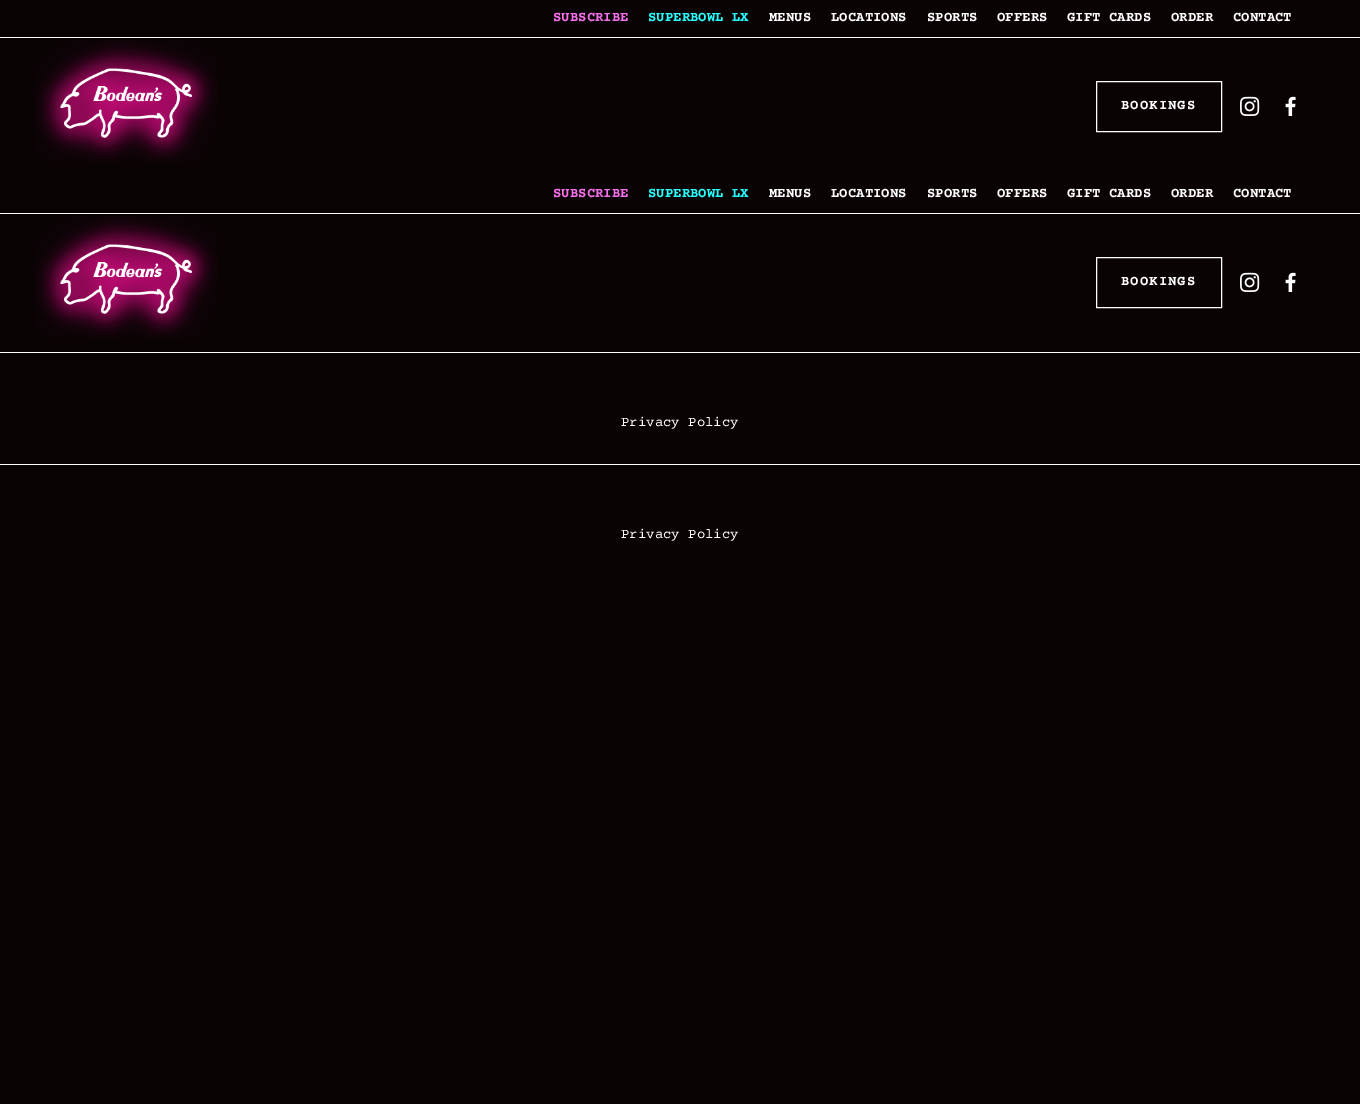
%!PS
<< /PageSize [1360 1104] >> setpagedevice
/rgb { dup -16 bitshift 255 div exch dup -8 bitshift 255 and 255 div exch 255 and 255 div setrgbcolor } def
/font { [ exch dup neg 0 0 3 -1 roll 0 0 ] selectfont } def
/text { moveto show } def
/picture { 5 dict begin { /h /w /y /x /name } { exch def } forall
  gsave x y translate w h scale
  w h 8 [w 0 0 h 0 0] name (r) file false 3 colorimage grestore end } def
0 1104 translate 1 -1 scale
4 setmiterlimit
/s1 { /CourierPrime-Bold 14 font 16#F470EB rgb } def
/s2 { /CourierPrime-Bold 14 font 16#28FFFF rgb } def
/s3 { /CourierPrime-Bold 14 font 16#FFFFFF rgb } def
/s4 { /CourierPrime-Regular 14 font 16#FFFFFF rgb } def
16#0A0304 rgb
0 0 1360 1104 rectfill
16#FFFFFF rgb
0 37 1360 1 rectfill
s1
(SUBSCRIBE) 553 21 text
s2
(SUPERBOWL LX) 648 21 text
s3
(MENUS) 769 21 text
(LOCATIONS) 831 21 text
(SPORTS) 927 21 text
(OFFERS) 997 21 text
(GIFT CARDS) 1067 21 text
(ORDER) 1171 21 text
(CONTACT) 1233 21 text
(pic1.raw) 35 40 183 123 picture
1096.5 81.5 125 50 rectstroke
1121 109 moveto 1 0 (BOOKINGS) ashow
(pic2.raw) 1240 96 20 20 picture
(pic3.raw) 1285 96 11 20 picture
0 213 1360 1 rectfill
s1
(SUBSCRIBE) 553 197 text
s2
(SUPERBOWL LX) 648 197 text
s3
(MENUS) 769 197 text
(LOCATIONS) 831 197 text
(SPORTS) 927 197 text
(OFFERS) 997 197 text
(GIFT CARDS) 1067 197 text
(ORDER) 1171 197 text
(CONTACT) 1233 197 text
(pic1.raw) 35 216 183 123 picture
1096.5 257.5 125 50 rectstroke
1121 285 moveto 1 0 (BOOKINGS) ashow
(pic2.raw) 1240 272 20 20 picture
(pic3.raw) 1285 272 11 20 picture
0 352 1360 1 rectfill
s4
(Privacy Policy) 621 426 text
0 464 1360 1 rectfill
(Privacy Policy) 621 538 text
showpage
